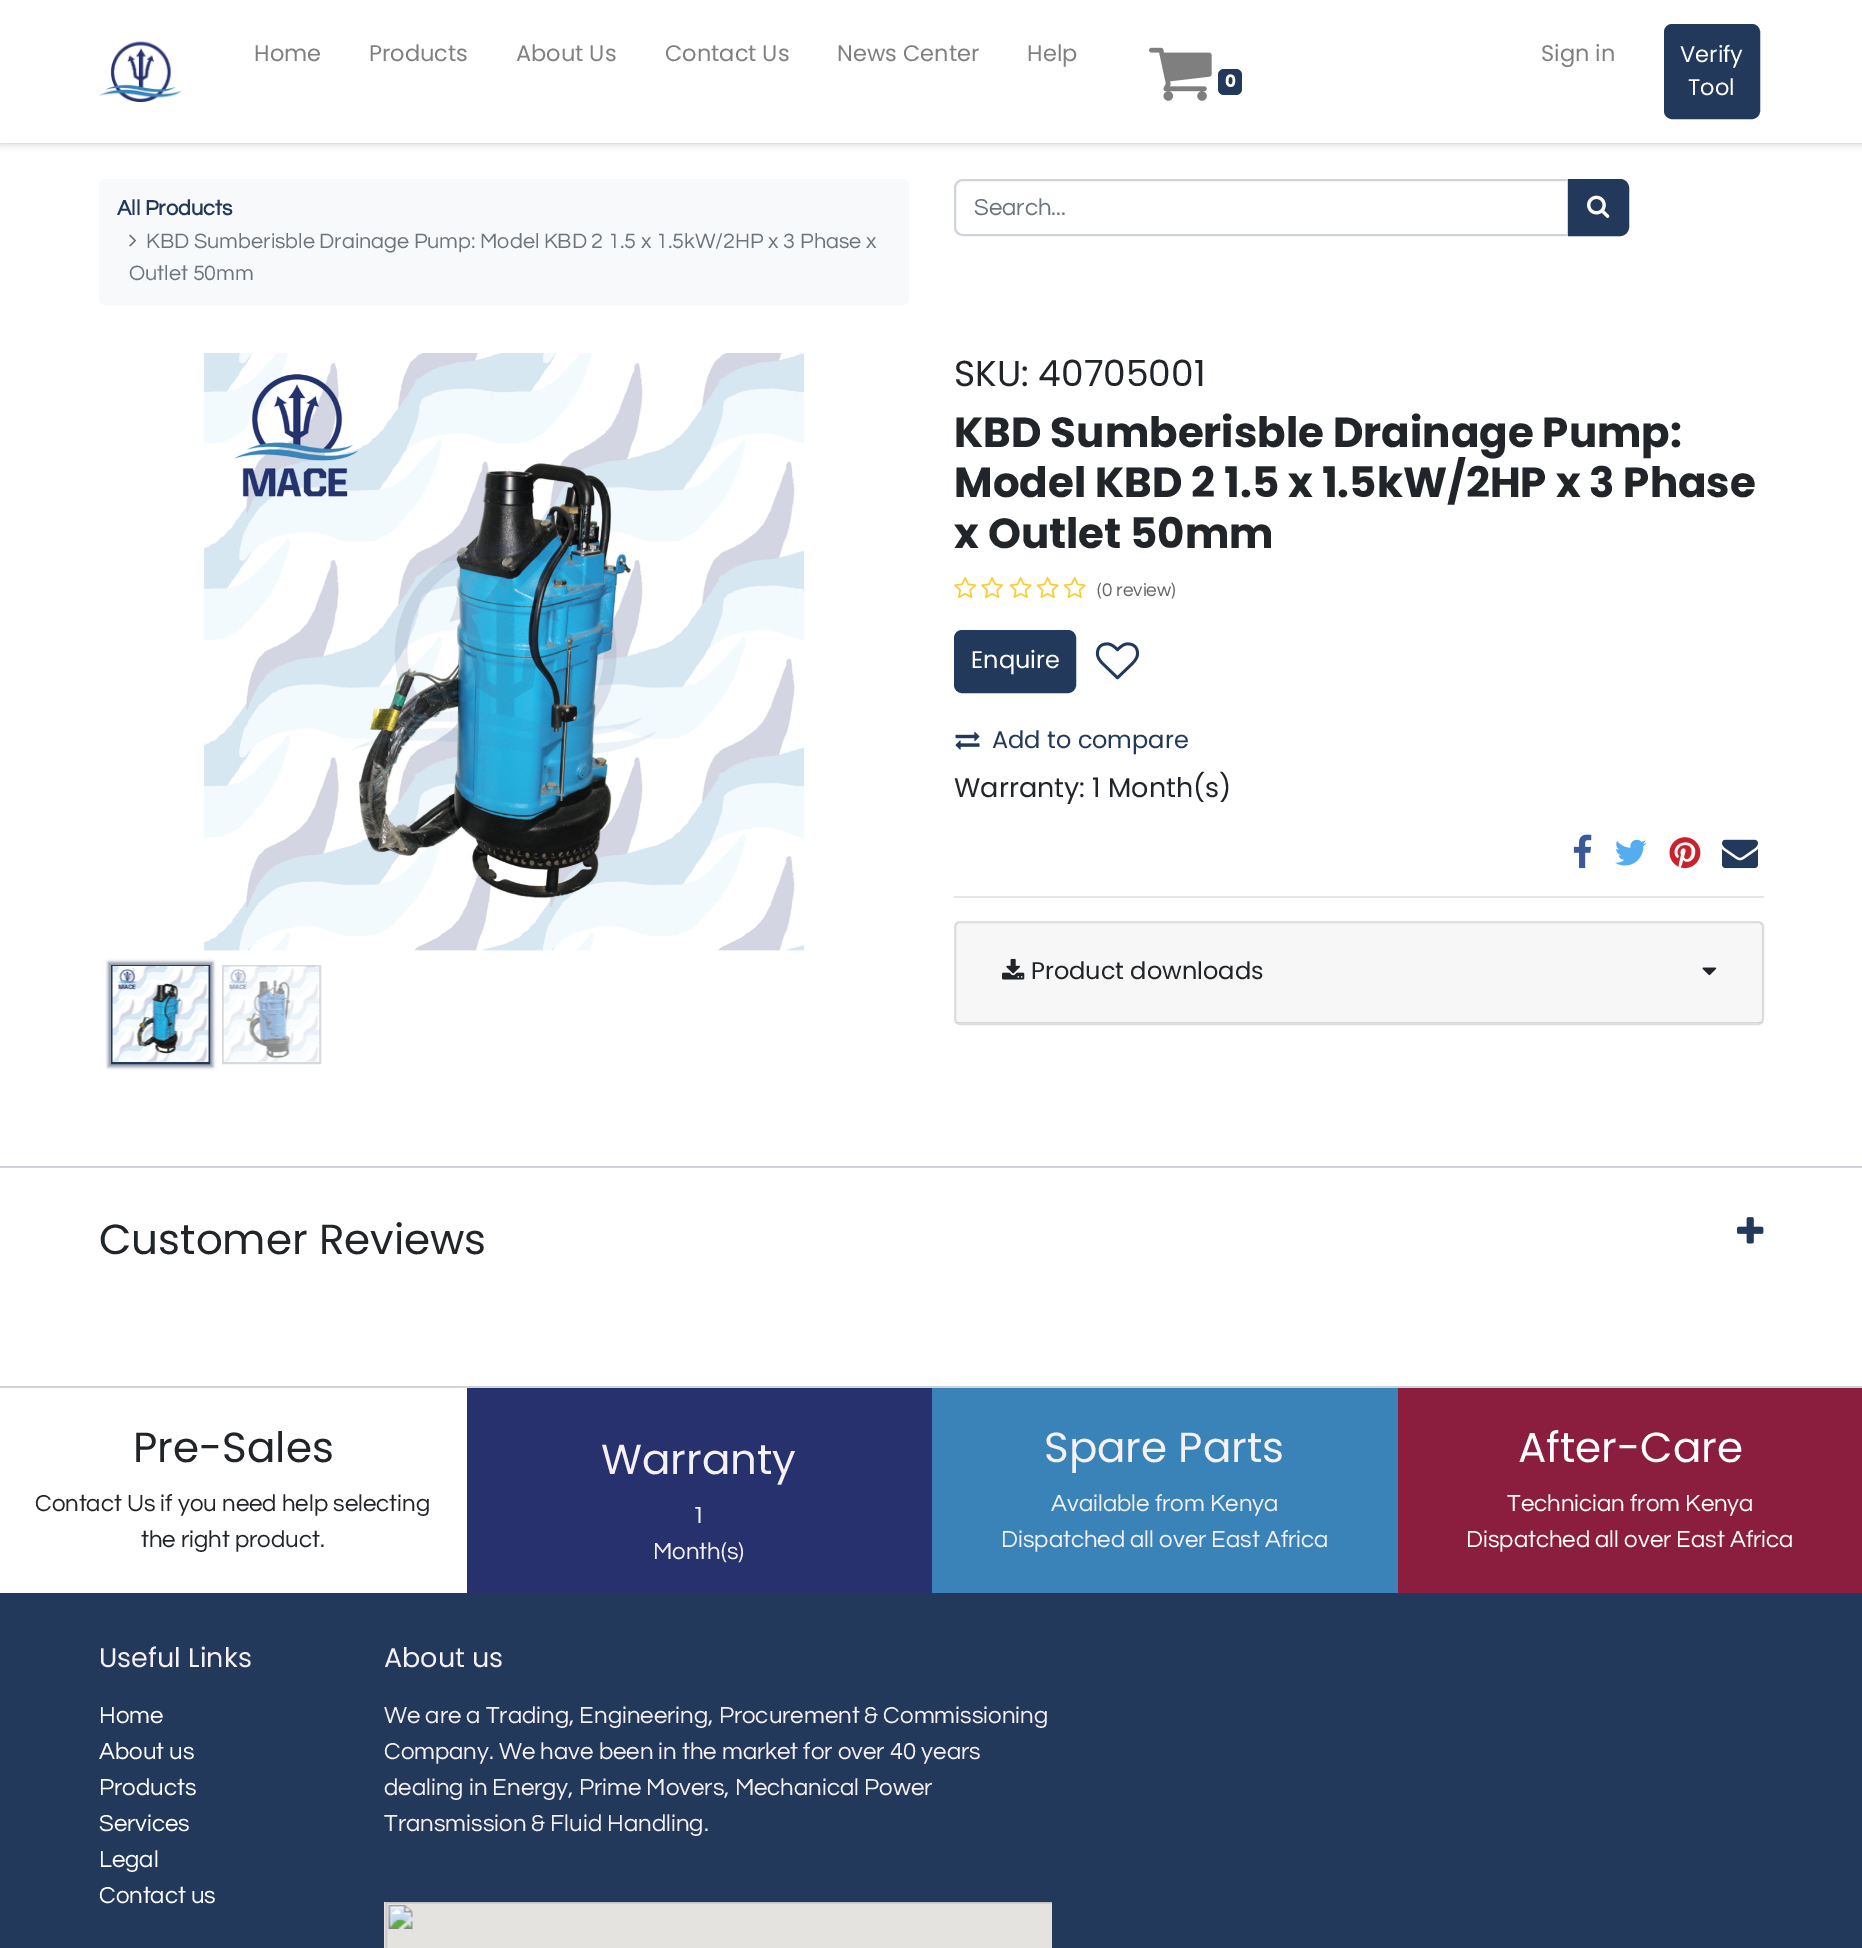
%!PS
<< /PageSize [1862 1948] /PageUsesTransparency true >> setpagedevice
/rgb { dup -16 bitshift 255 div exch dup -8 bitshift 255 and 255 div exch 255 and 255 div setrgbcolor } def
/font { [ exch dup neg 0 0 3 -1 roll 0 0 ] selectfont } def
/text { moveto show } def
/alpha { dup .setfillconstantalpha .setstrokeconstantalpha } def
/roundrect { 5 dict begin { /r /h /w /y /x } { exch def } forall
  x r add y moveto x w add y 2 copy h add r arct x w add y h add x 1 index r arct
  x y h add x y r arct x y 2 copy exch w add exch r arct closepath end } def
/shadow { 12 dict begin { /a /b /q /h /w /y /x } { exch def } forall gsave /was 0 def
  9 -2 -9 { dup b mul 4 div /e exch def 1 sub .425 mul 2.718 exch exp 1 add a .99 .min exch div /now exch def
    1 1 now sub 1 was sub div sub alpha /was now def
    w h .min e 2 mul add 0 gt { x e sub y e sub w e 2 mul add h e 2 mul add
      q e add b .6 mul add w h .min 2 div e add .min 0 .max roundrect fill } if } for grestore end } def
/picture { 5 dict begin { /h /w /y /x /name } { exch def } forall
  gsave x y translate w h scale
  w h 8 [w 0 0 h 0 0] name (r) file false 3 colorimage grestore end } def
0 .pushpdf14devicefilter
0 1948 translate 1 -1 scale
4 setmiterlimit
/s1 { /Poppins-Regular 22.5 font 16#808080 rgb } def
/s2 { /Poppins-Bold 17 font 16#FFFFFF rgb } def
/s3 { /Poppins-Regular 22.5 font 16#FFFFFF rgb } def
/s4 { /Questrial-Bold 21.6 font 16#23395B rgb } def
/s5 { /Questrial-Regular 21.6 font 16#6C757D rgb } def
/s6 { /Questrial-Regular 24 font 16#6C757D rgb } def
/s7 { /Poppins-Regular 36 font 16#212529 rgb } def
/s8 { /Poppins-Bold 42 font 16#212529 rgb } def
/s9 { /Questrial-Regular 19 font 16#646669 rgb } def
/s10 { /Poppins-Regular 24 font 16#FFFFFF rgb } def
/s11 { /Poppins-Regular 24 font 16#23395B rgb } def
/s12 { /Poppins-Regular 27 font 16#212529 rgb } def
/s13 { /Poppins-Regular 24 font 16#212529 rgb } def
/s14 { /Poppins-Regular 42 font 16#212529 rgb } def
/s15 { /Questrial-Regular 24 font 16#212529 rgb } def
/s16 { /Poppins-Regular 42 font 16#F5F0F2 rgb } def
/s17 { /Questrial-Regular 24 font 16#F5F0F2 rgb } def
/s18 { /Poppins-Regular 42 font 16#FFFFFF rgb } def
/s19 { /Questrial-Regular 24 font 16#FFFFFF rgb } def
/s20 { /Poppins-Regular 27 font 16#F5F0F2 rgb } def
16#FFFFFF rgb
0 0 1862 1948 rectfill
16#000000 rgb
0 0 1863 143 0 4 0.25 shadow
16#FFFFFF rgb
0 0 1862 143 rectfill
(pic1.raw) 99 41 83 61 picture
s1
(Home) 254 61 text
(Products) 369 61 text
(About Us) 516 61 text
(Contact Us) 665 61 text
(News Center) 837 61 text
(Help) 1027 61 text
(Sign in) 1541 61 text
(pic2.raw) 1149 47 63 54 picture
16#23395B rgb
1218 69 24 26 6 roundrect fill
s2
(0) 1225 87 text
16#23395B rgb
1665 25 94 93 7 roundrect gsave fill grestore
2 setlinewidth
stroke
s3
(Verify) 1680 62 text
(Tool) 1688 95 text
16#F8F9FA rgb
99 179 810 126 6 roundrect fill
s4
(All Products) 117 215 text
(pic3.raw) 129 234 8 13 picture
s5
(KBD Sumberisble Drainage Pump: Model KBD 2 1.5 x 1.5kW/2HP x 3 Phase x) 146 248 text
(Outlet 50mm) 129 280 text
16#CED4DA rgb
963 180 moveto 1568 180 lineto 1568 235 lineto 963 235 lineto 958.5 235 955 231.5 955 227 curveto 955 188 lineto 955 183.5 958.5 180 963 180 curveto closepath stroke
s6
(Search...) 974 215 text
16#23395B rgb
1569 180 moveto 1620 180 lineto 1624.5 180 1628 183.5 1628 188 curveto 1628 227 lineto 1628 231.5 1624.5 235 1620 235 curveto 1569 235 lineto closepath gsave fill grestore
stroke
(pic4.raw) 1587 195 23 23 picture
(pic5.raw) 204 353 601 598 picture
108 962 105 105 0 1.5 0.5 shadow
112 966 97 97 rectstroke
(pic6.raw) 112 966 97 96 picture
16#D6DADE rgb
223 966 97 97 rectstroke
(pic7.raw) 223 966 97 96 picture
s7
(SKU: 40705001) 954 386 text
s8
(KBD Sumberisble Drainage Pump:) 954 447 text
(Model KBD 2 1.5 x 1.5kW/2HP x 3 Phase) 954 497 text
(x Outlet 50mm) 954 548 text
(pic8.raw) 954 576 23 23 picture
(pic8.raw) 981 576 23 23 picture
(pic9.raw) 1009 576 23 23 picture
(pic9.raw) 1036 576 23 23 picture
(pic9.raw) 1063 576 23 23 picture
s9
(\(0 review\)) 1097 596 text
16#23395B rgb
955 631 120 61 7 roundrect gsave fill grestore
stroke
s10
(Enquire) 971 668 text
(pic10.raw) 1095 642 45 38 picture
(pic11.raw) 955 731 25 19 picture
s11
(Add to compare) 992 748 text
s12
(Warranty: 1 Month\(s\)) 954 797 text
(pic12.raw) 1573 834 19 35 picture
(pic13.raw) 1615 839 32 27 picture
(pic14.raw) 1669 837 32 32 picture
(pic15.raw) 1722 839 36 30 picture
16#E6E6E6 rgb
954 896 810 2 rectfill
16#DFDFDF rgb
955 922 808 102 5 roundrect stroke
0.03 alpha
16#000000 rgb
956 923 807 100 rectfill
gsave
956 923 807 100 5 roundrect clip newpath
0.12 alpha
956 1022 807 1 rectfill
grestore
1 alpha
(pic16.raw) 1002 958 23 22 picture
s13
(Product downloads) 1031 979 text
(pic17.raw) 1702 967 15 9 picture
16#CED4DA rgb
0 1166 1862 2 rectfill
s14
(Customer Reviews) 99 1254 text
(pic18.raw) 1737 1217 27 27 picture
16#CED4DA rgb
0 1386 1862 2 rectfill
s14
(Pre-Sales) 133 1462 text
s15
(Contact Us if you need help selecting) 35 1511 text
(the right product.) 141 1547 text
16#26316D rgb
467 1388 465 205 rectfill
s16
(Warranty) 601 1474 text
s17
(1) 692 1523 text
(Month\(s\)) 653 1559 text
16#3983B8 rgb
932 1388 466 205 rectfill
s16
(Spare Parts) 1044 1462 text
s17
(Available from Kenya) 1051 1511 text
(Dispatched all over East Africa) 1001 1547 text
16#8B1E3F rgb
1398 1388 464 205 rectfill
s18
(After-Care) 1518 1462 text
s19
(Technician from Kenya) 1507 1511 text
(Dispatched all over East Africa) 1466 1547 text
16#23395B rgb
0 1593 1862 355 rectfill
s20
(Useful Links) 99 1667 text
s19
(Home) 99 1723 text
(About us) 99 1759 text
(Products) 99 1795 text
(Services) 99 1831 text
(Legal) 99 1867 text
(Contact us) 99 1903 text
s20
(About us) 384 1667 text
s17
(We are a Trading, Engineering, Procurement & Commissioning) 384 1723 text
(Company. We have been in the market for over 40 years) 384 1759 text
(dealing in Energy, Prime Movers, Mechanical Power) 384 1795 text
(Transmission & Fluid Handling.) 384 1831 text
(pic19.raw) 384 1902 668 46 picture
.poppdf14devicefilter showpage
